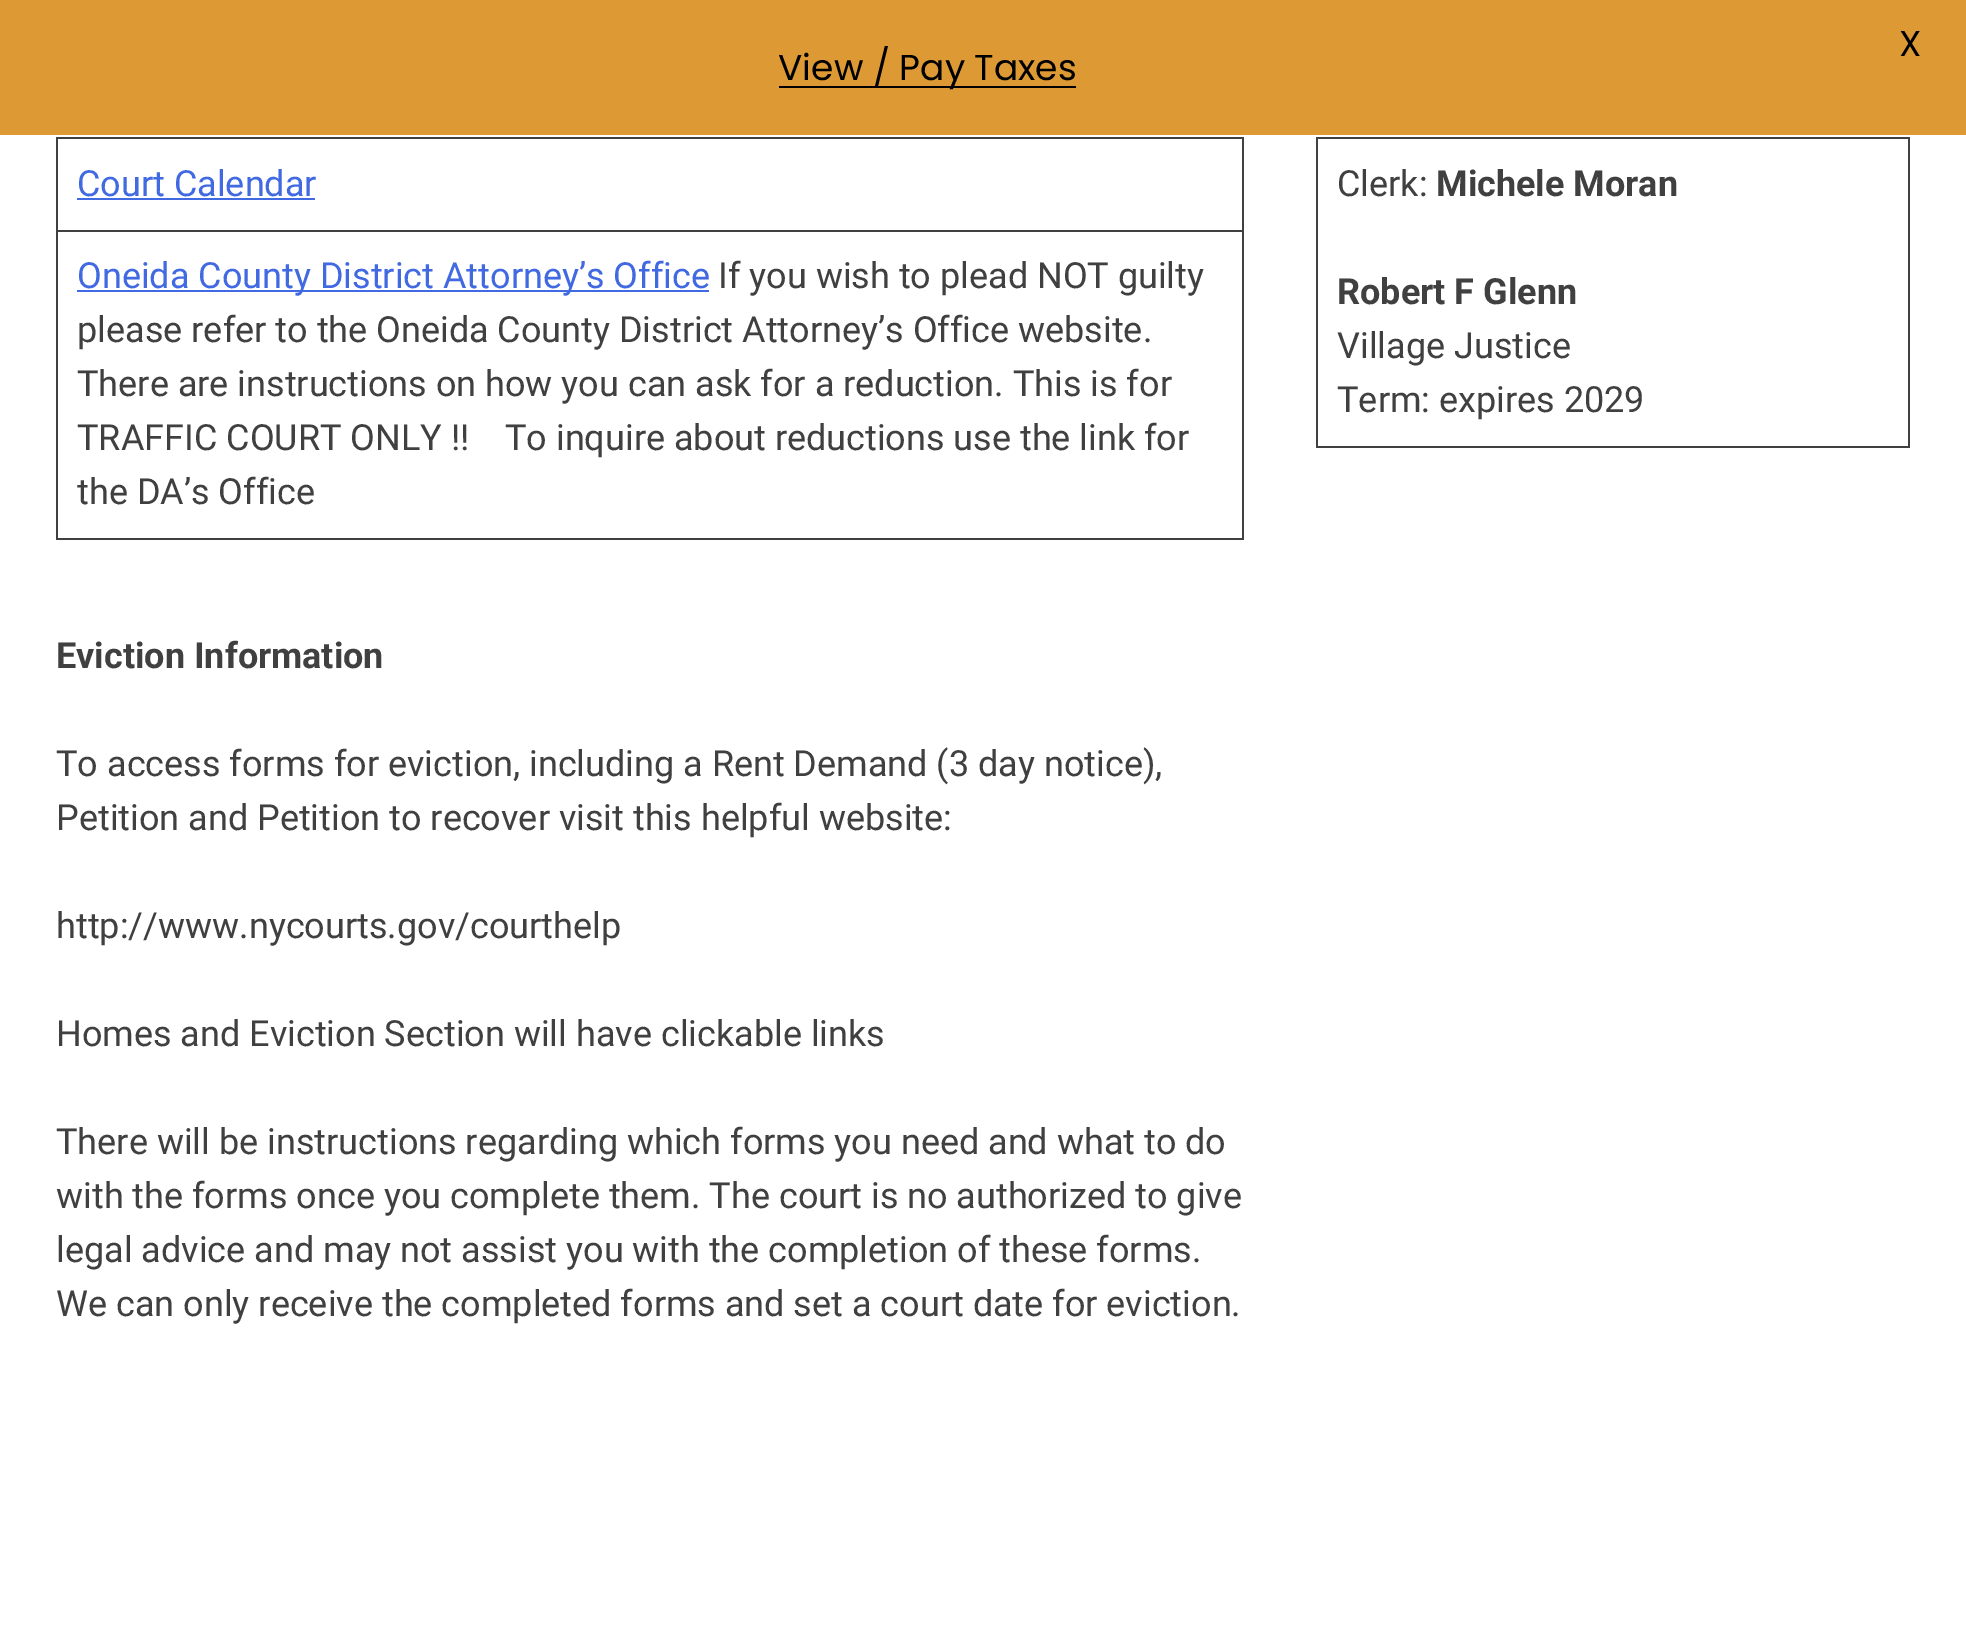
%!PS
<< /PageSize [1966 1629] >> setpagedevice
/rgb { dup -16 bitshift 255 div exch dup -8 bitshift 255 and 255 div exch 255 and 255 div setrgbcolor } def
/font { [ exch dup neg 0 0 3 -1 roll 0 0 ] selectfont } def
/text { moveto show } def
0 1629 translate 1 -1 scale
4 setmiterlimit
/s1 { /Poppins-Regular 36 font 16#000000 rgb } def
/s2 { /Roboto-Regular 36 font 16#4169E1 rgb } def
/s3 { /Roboto-Regular 36 font 16#404040 rgb } def
/s4 { /Roboto-Bold 36 font 16#404040 rgb } def
16#FFFFFF rgb
0 0 1966 1629 rectfill
16#DD9933 rgb
0 0 1966 135 rectfill
s1
(X) 1899 56 text
779 86 297 2 rectfill
(View / Pay Taxes) 778 80 text
16#404040 rgb
56 137 1188 2 rectfill
56 230 1188 2 rectfill
1242 230 2 310 rectfill
1242 137 2 95 rectfill
56 538 1188 2 rectfill
56 230 2 310 rectfill
56 137 2 95 rectfill
s2
(Court Calendar) 77 196 text
77 198 238 2 rectfill
77 290 632 2 rectfill
(Oneida County District Attorney’s Office) 77 288 text
s3
(If you wish to plead NOT guilty) 718 288 text
(please refer to the Oneida County District Attorney’s Office website.) 77 342 text
(There are instructions on how you can ask for a reduction. This is for) 77 396 text
(TRAFFIC COURT ONLY !!    To inquire about reductions use the link for) 77 450 text
(the DA’s Office) 77 504 text
s4
(Eviction Information) 56 668 text
s3
(To access forms for eviction, including a Rent Demand \(3 day notice\),) 56 776 text
(Petition and Petition to recover visit this helpful website:) 56 830 text
(http://www.nycourts.gov/courthelp) 56 938 text
(Homes and Eviction Section will have clickable links) 56 1046 text
(There will be instructions regarding which forms you need and what to do) 56 1154 text
(with the forms once you complete them. The court is no authorized to give) 56 1208 text
(legal advice and may not assist you with the completion of these forms.) 56 1262 text
(We can only receive the completed forms and set a court date for eviction.) 56 1316 text
1316 137 594 2 rectfill
1908 137 2 311 rectfill
1316 446 594 2 rectfill
1316 137 2 311 rectfill
(Clerk:) 1337 196 text
s4
(Michele Moran) 1436 196 text
(Robert F Glenn) 1337 304 text
s3
(Village Justice) 1337 358 text
(Term: expires 2029) 1337 412 text
showpage
